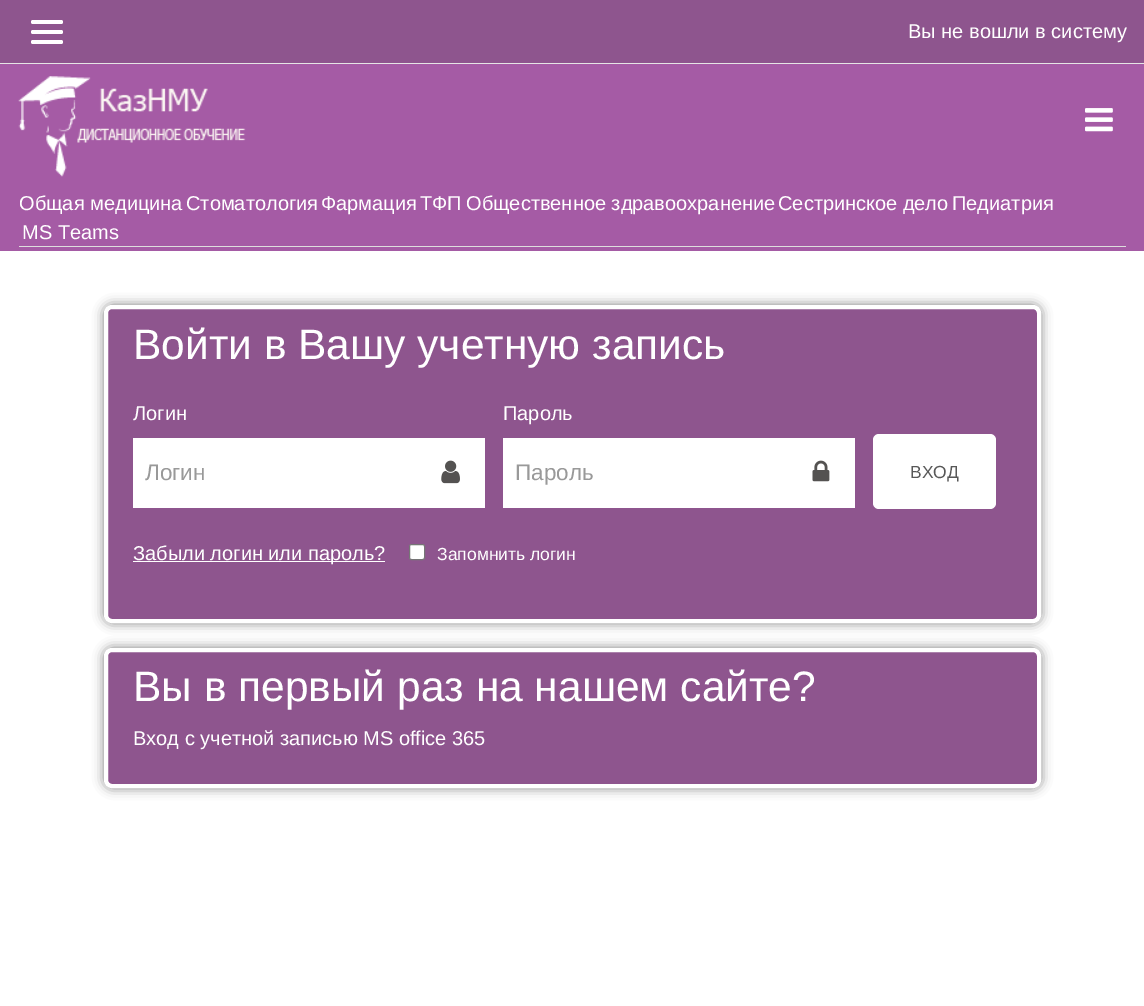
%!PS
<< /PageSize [1144 1006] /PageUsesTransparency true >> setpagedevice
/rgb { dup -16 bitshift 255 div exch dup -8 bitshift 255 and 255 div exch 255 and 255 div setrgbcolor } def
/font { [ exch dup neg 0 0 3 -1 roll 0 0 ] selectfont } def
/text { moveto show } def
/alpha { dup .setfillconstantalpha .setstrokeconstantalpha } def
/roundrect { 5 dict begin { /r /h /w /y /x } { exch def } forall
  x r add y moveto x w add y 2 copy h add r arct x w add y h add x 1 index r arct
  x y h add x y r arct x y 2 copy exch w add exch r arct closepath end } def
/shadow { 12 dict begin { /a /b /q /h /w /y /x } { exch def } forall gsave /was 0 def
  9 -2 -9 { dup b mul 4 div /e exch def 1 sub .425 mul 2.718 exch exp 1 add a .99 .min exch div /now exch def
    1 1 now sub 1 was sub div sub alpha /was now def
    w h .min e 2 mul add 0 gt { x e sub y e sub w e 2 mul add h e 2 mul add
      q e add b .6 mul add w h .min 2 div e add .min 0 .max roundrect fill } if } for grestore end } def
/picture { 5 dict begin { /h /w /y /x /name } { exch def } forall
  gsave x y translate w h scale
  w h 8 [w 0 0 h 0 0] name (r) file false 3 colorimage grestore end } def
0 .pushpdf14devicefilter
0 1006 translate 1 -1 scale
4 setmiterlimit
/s1 { /LiberationSans-Regular 20 font 16#FFFFFF rgb } def
/s2 { /LiberationSans-Regular 42.5 font 16#FFFFFF rgb } def
/s3 { /LiberationSans-Regular 22.5 font 16#999999 rgb } def
/s4 { /LiberationSans-Regular 17.5 font 16#585858 rgb } def
/s5 { /LiberationSans-Regular 17.5 font 16#FFFFFF rgb } def
16#FFFFFF rgb
0 0 1144 1006 rectfill
16#E5E5E5 rgb
0 63 1144 1 rectfill
16#8E558E rgb
0 0 1144 63 rectfill
16#FFFFFF rgb
31 20 32 4 2 roundrect fill
31 30 32 4 2 roundrect fill
31 40 32 4 2 roundrect fill
s1
(Вы не вошли в систему) 908 38 text
16#A55BA5 rgb
0 64 1144 187 rectfill
(pic1.raw) 18 76 228 101 picture
(pic2.raw) 1085 108 28 24 picture
16#DDDDDD rgb
19 246 1107 1 rectfill
s1
(Общая медицина) 19 210 text
(Стоматология) 186 210 text
(Фармация) 321 210 text
(ТФП) 420 210 text
(Общественное здравоохранение) 466 210 text
(Сестринское дело) 778 210 text
(Педиатрия) 952 210 text
(MS Teams) 22 239 text
16#000000 rgb
104 305 937 318 8 5.5 0.5 shadow
16#8E558E rgb
106 307 933 314 6 roundrect gsave fill grestore
16#FFFFFF rgb
4 setlinewidth
stroke
s2
(Войти в Вашу учетную запись) 133 359 text
s1
(Логин) 133 420 text
133 438 352 70 rectfill
s3
(Логин) 145 480 text
(pic3.raw) 441 460 19 24 picture
s1
(Пароль) 503 420 text
503 438 352 70 rectfill
s3
(Пароль) 515 480 text
(pic4.raw) 812 460 18 22 picture
16#FFFFFF rgb
873 434 123 75 6 roundrect fill
s4
(ВХОД) 910 478 text
16#FFFFFF rgb
133 561 252 1 rectfill
s1
(Забыли логин или пароль?) 133 560 text
409.5 544.5 15 15 2 roundrect gsave fill grestore
16#767676 rgb
1 setlinewidth
stroke
s5
(Запомнить логин) 437 560 text
16#000000 rgb
104 648 937 140 8 5.5 0.5 shadow
16#8E558E rgb
106 650 933 136 6 roundrect gsave fill grestore
16#FFFFFF rgb
4 setlinewidth
stroke
s2
(Вы в первый раз на нашем сайте?) 133 701 text
s1
(Вход с учетной записью MS office 365) 133 745 text
.poppdf14devicefilter showpage
